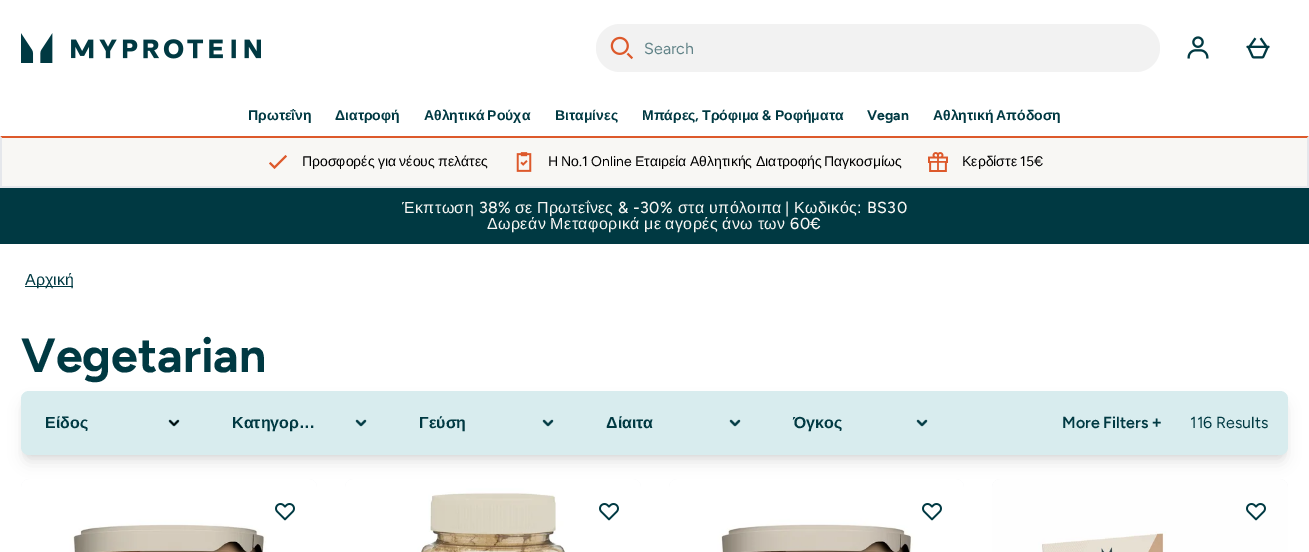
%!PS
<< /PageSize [1309 552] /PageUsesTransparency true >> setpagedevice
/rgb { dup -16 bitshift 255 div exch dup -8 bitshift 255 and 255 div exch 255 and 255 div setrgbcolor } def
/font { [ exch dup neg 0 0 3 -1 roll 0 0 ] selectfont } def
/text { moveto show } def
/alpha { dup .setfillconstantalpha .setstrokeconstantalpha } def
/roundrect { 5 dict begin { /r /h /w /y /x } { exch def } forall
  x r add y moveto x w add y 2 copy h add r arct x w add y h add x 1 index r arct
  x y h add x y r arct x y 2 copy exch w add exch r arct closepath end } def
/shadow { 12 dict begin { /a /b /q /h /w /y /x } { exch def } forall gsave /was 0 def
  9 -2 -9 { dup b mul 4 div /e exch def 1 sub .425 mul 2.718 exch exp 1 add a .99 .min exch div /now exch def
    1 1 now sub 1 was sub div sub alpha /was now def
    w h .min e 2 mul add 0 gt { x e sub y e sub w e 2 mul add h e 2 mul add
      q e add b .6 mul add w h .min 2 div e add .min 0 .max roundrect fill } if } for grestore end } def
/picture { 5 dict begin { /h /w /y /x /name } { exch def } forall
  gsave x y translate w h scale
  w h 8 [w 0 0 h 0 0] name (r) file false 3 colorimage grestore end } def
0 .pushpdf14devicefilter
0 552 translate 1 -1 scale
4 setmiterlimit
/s1 { /Figtree-Regular 16 font 16#618388 rgb } def
/s2 { /LiberationSans-Bold 14 font 16#003942 rgb } def
/s3 { /Figtree-Bold 14 font 16#003942 rgb } def
/s4 { /LiberationSans-Regular 14 font 16#000000 rgb } def
/s5 { /Figtree-Regular 14 font 16#000000 rgb } def
/s6 { /LiberationSans-Regular 16 font 16#003942 rgb } def
/s7 { /Figtree-Bold 48 font 16#003942 rgb } def
/s8 { /LiberationSans-Bold 16 font 16#003942 rgb } def
/s9 { /Figtree-SemiBold 16 font 16#003942 rgb } def
/s10 { /Figtree-Regular 16 font 16#003942 rgb } def
16#FFFFFF rgb
0 0 1309 552 rectfill
(pic1.raw) 21 33 240 30 picture
16#F2F2F2 rgb
596 24 564 48 24 roundrect fill
(pic2.raw) 610 36 23 24 picture
s1
(Search) 644 54 text
(pic3.raw) 1187 36 22 23 picture
(pic4.raw) 1246 37 24 22 picture
s2
(Πρωτεΐνη) 248 120 text
(Διατροφή) 335 120 text
424 120 moveto -1 0 32 (Αθλητικά Ρούχα) widthshow
(Βιταμίνες) 555 120 text
(Μπάρες) 642 120 text
s3
(,) 695 120 text
s2
(Τρόφιμα) 702 120 text
s3
(&) 762 120 text
s2
(Ροφήματα) 775 120 text
s3
(Vegan) 867 120 text
/LiberationSans-Bold 14 font
933 120 moveto -1 0 32 (Αθλητική Απόδοση) widthshow
16#F8F7F4 rgb
0 136 1309 50 rectfill
16#DD592B rgb
0 136 moveto 1309 136 lineto 1307 138 lineto 2 138 lineto closepath fill
16#E5E7EB rgb
1309 136 moveto 1309 188 lineto 1307 186 lineto 1307 138 lineto closepath fill
0 186 1309 2 rectfill
0 188 moveto 0 136 lineto 2 138 lineto 2 186 lineto closepath fill
16#DD592B rgb
285.5 155 moveto 287 156.5 lineto 274.5 169 lineto 269 163.5 lineto 270.5 162 lineto 274.5 166 lineto closepath fill
/LiberationSans-Regular 14 font
16#000000 rgb
302 166 moveto -0.5 0 32 (Προσφορές για νέους πελάτες) widthshow
(pic5.raw) 516 152 16 20 picture
(Η) 548 166 text
(Νο) 561 166 text
s5
(.1 Online) 579 166 text
s4
(Εταιρεία) 635 166 text
(Αθλητικής) 690 166 text
(Διατροφής) 756 166 text
(Παγκοσμίως) 824 166 text
(pic6.raw) 928 152 20 20 picture
(Κερδίστε) 962 166 text
s5
(15€) 1020 166 text
16#003942 rgb
0 188 1309 56 rectfill
/LiberationSans-Regular 16 font
16#F8F7F4 rgb
402 213 moveto 0.4 0 (Έκπτωση) ashow
/Figtree-Medium 16 font
479 213 moveto 0.4 0 (38%) ashow
/LiberationSans-Regular 16 font
515 213 moveto 0.4 0 (σε) ashow
537 213 moveto 0.4 0 (Πρωτεΐνες) ashow
/Figtree-Medium 16 font
618 213 moveto 0.4 0 (& -30%) ashow
/LiberationSans-Regular 16 font
678 213 moveto 0.4 0 (στα) ashow
709 213 moveto 0.4 0 (υπόλοιπα) ashow
785 213 moveto 0.4 0 (|) ashow
794 213 moveto 0.4 0 (Κωδικός:) ashow
/Figtree-Medium 16 font
867 213 moveto 0.4 0 (BS30) ashow
/LiberationSans-Regular 16 font
487 229 moveto -0.5 0 32 0.4 0 (Δωρεάν Μεταφορικά με αγορές άνω των) awidthshow
/Figtree-Medium 16 font
790 229 moveto 0.4 0 (60€) ashow
16#003942 rgb
25 286 48 1 rectfill
s6
(Αρχική) 25 285 text
s7
(Vegetarian) 21 372 text
(pic9.raw) 21 479 296 73 picture
(pic11.raw) 345 479 296 73 picture
(pic12.raw) 669 479 295 73 picture
(pic13.raw) 992 479 296 73 picture
16#000000 rgb
24 404 1261 58 5 7.5 0.1 shadow
23 397 1263 60 6 3 0.05 shadow
16#D8ECEE rgb
21 391 1267 64 8 roundrect fill
s8
(Είδος) 45 428 text
(pic7.raw) 168 419 12 8 picture
232 428 moveto -1 0 32 (Κατηγορ…) widthshow
(pic8.raw) 355 419 12 8 picture
(Γεύση) 419 428 text
(pic8.raw) 542 419 12 8 picture
(Δίαιτα) 606 428 text
(pic8.raw) 729 419 12 8 picture
(Όγκος) 793 428 text
(pic8.raw) 916 419 12 8 picture
s9
(More Filters) 1062 428 text
s8
(+) 1152 428 text
s10
(116 Results) 1190 428 text
(pic10.raw) 275 503 20 18 picture
(pic10.raw) 599 503 20 18 picture
(pic10.raw) 922 503 20 18 picture
(pic14.raw) 1246 503 20 18 picture
.poppdf14devicefilter showpage
